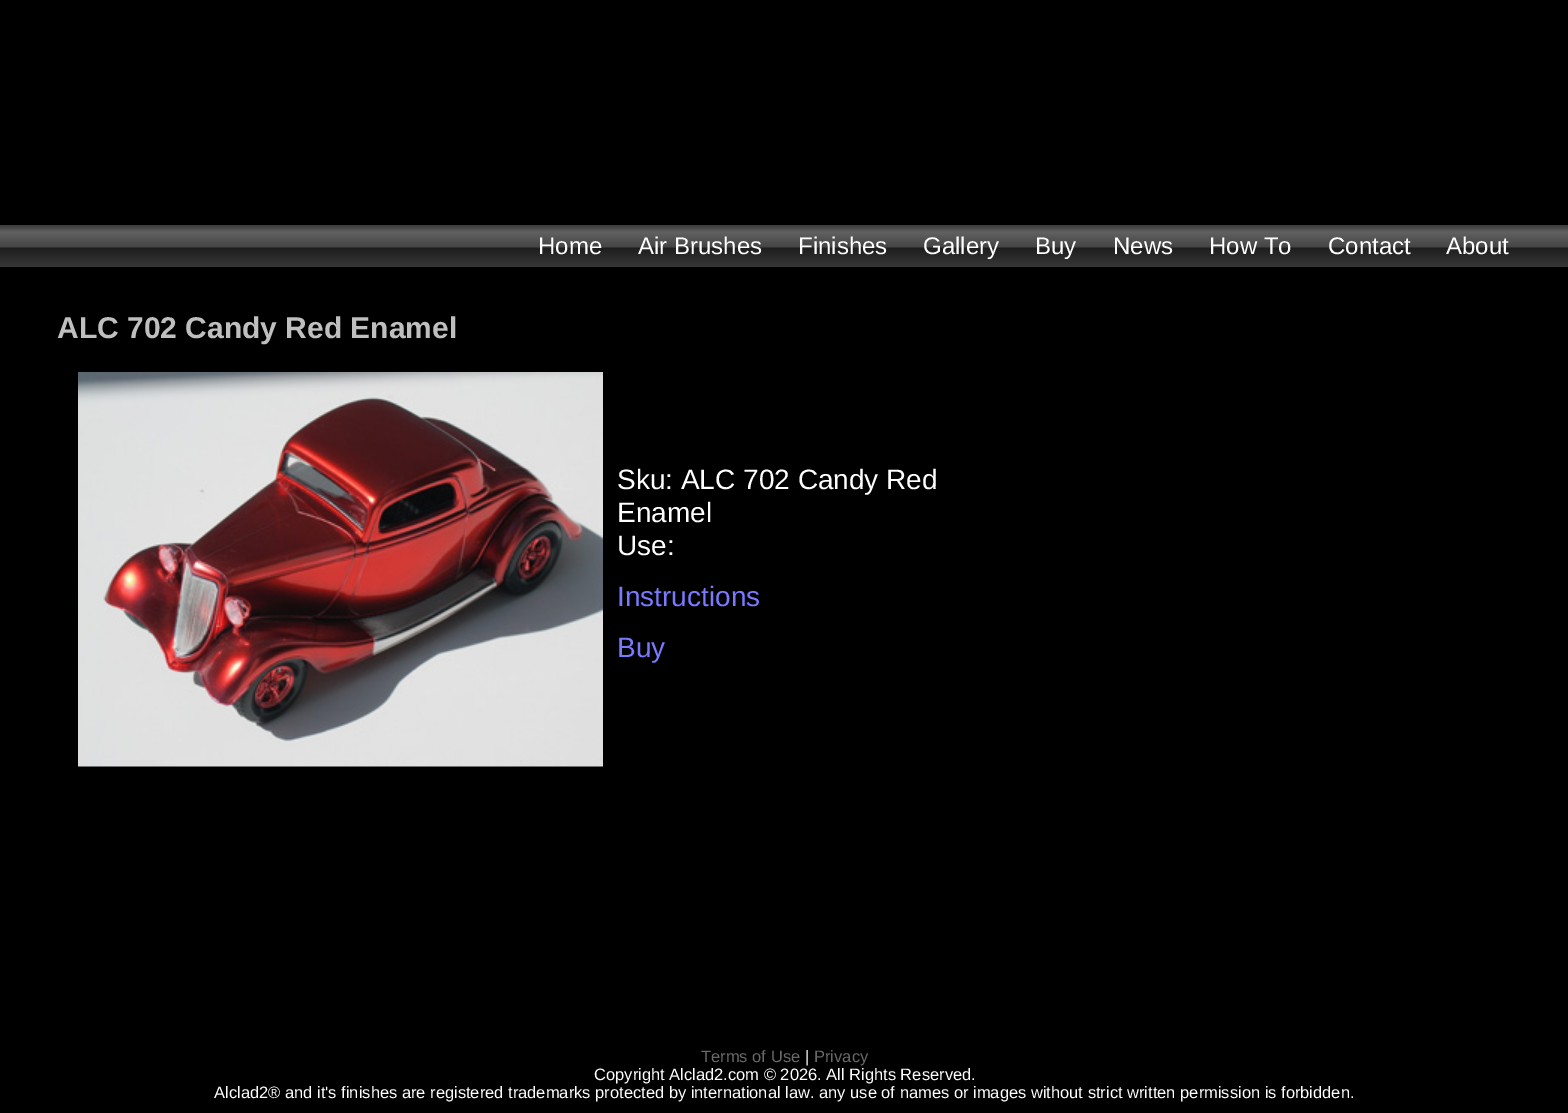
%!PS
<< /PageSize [1568 1113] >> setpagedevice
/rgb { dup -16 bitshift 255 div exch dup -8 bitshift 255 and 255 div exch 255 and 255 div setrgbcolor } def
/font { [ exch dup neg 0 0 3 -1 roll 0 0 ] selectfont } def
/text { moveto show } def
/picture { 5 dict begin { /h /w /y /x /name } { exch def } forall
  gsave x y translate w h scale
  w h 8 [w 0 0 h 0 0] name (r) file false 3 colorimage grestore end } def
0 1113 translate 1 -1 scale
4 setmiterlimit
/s1 { /LiberationSans-Regular 24 font 16#FFFFFF rgb } def
/s2 { /LiberationSans-Bold 30 font 16#BFBFBF rgb } def
/s3 { /LiberationSans-Regular 28 font 16#FFFFFF rgb } def
/s4 { /LiberationSans-Regular 28 font 16#7A7AFF rgb } def
/s5 { /LiberationSans-Regular 16.5 font 16#696969 rgb } def
/s6 { /LiberationSans-Regular 16.5 font 16#FFFFFF rgb } def
16#000000 rgb
0 0 1568 1113 rectfill
(pic1.raw) 0 225 1568 42 picture
s1
(Home) 538 254 text
(Air Brushes) 638 254 text
(Finishes) 798 254 text
(Gallery) 923 254 text
(Buy) 1035 254 text
(News) 1113 254 text
(How To) 1209 254 text
(Contact) 1328 254 text
(About) 1446 254 text
s2
(ALC 702 Candy Red Enamel) 57 338 text
(pic2.raw) 78 372 525 395 picture
s3
(Sku: ALC 702 Candy Red) 617 489 text
(Enamel) 617 522 text
(Use:) 617 555 text
s4
(Instructions) 617 606 text
(Buy) 617 657 text
s5
(Terms of Use) 701 1062 text
s6
(|) 805 1062 text
s5
(Privacy) 814 1062 text
s6
(Copyright Alclad2.com © 2026. All Rights Reserved.) 594 1080 text
(Alclad2® and it's finishes are registered trademarks protected by international law. any use of names or images without strict written permission is forbidden.) 214 1098 text
showpage
